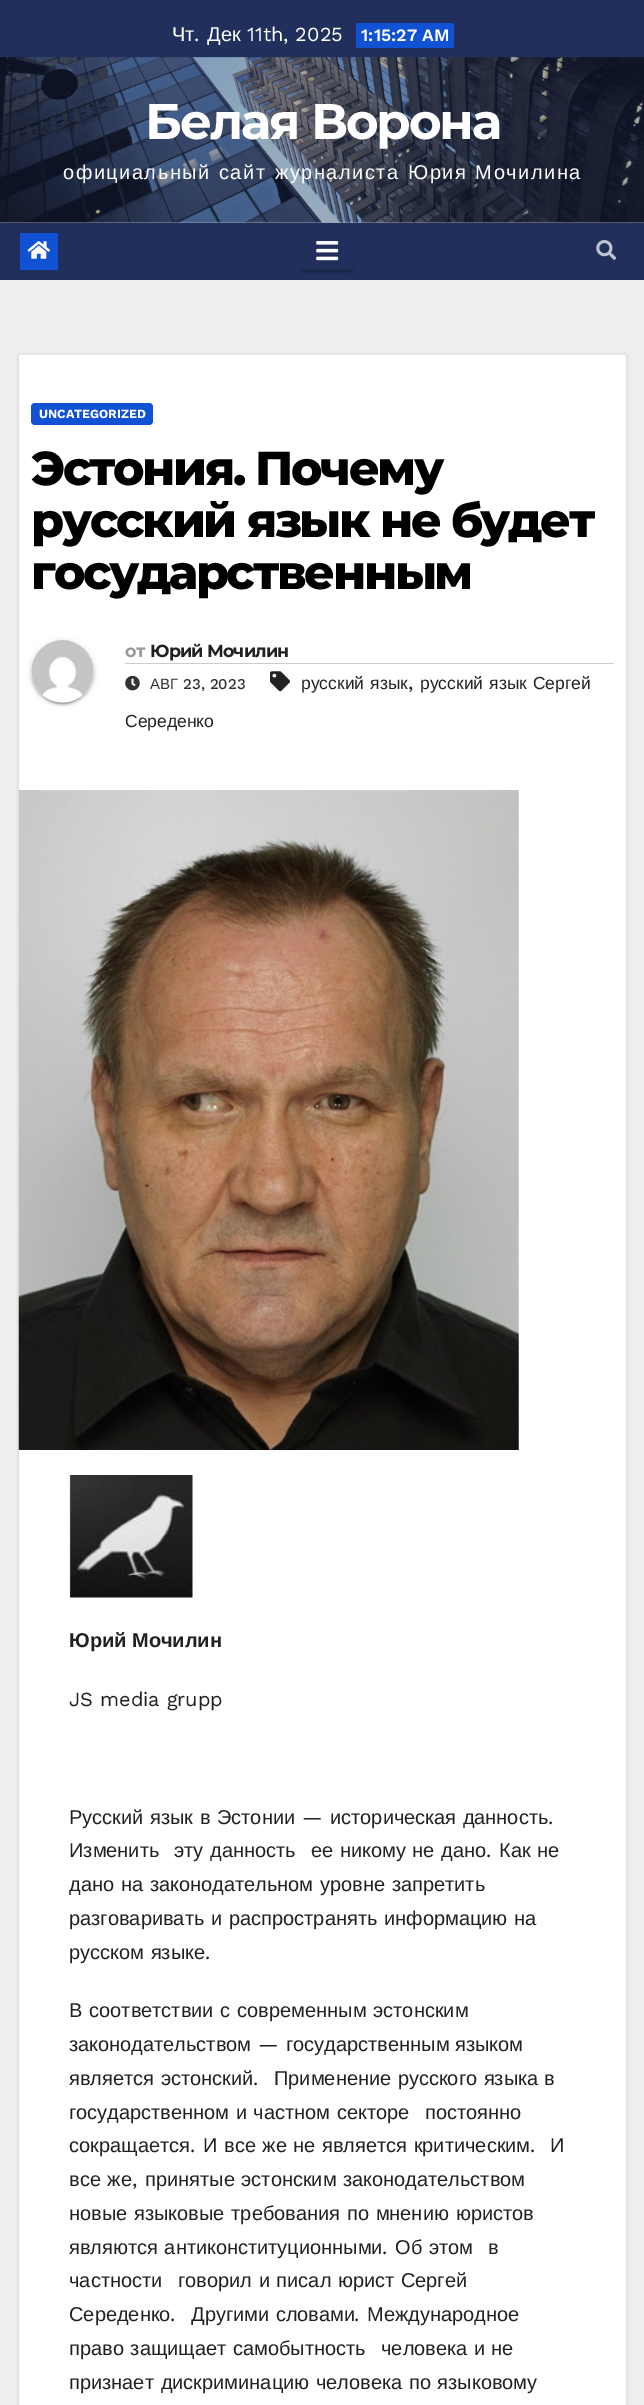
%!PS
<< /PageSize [644 2405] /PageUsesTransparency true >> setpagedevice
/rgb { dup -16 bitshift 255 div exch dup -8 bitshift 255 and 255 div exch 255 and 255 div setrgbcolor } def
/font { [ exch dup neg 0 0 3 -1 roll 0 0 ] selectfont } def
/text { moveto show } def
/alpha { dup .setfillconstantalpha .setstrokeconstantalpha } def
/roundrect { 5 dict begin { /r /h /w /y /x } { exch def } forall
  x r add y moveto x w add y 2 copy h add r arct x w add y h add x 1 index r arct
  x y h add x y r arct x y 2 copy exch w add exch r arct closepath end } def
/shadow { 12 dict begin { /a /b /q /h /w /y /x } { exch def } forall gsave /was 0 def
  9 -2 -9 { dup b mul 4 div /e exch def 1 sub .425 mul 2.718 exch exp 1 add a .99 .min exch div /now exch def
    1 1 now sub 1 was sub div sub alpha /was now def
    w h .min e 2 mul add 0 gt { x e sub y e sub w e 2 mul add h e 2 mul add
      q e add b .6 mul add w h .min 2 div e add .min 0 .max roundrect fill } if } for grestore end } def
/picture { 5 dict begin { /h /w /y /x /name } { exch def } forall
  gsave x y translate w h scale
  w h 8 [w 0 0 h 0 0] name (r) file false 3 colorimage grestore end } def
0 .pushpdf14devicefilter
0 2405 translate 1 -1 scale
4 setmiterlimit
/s1 { /LiberationSans-Regular 20 font 16#FFFFFF rgb } def
/s2 { /WorkSans-Regular 20 font 16#FFFFFF rgb } def
/s3 { /WorkSans-SemiBold 17.5 font 16#FFFFFF rgb } def
/s4 { /WorkSans-Bold 12.5 font 16#FFFFFF rgb } def
/s5 { /WorkSans-Regular 20 font 16#212121 rgb } def
/s6 { /LiberationSans-Regular 17.5 font 16#212121 rgb } def
/s7 { /LiberationSans-Regular 15 font 16#333333 rgb } def
/s8 { /WorkSans-Medium 15 font 16#333333 rgb } def
/s9 { /LiberationSans-Bold 20 font 16#212121 rgb } def
/s10 { /LiberationSans-Regular 20 font 16#212121 rgb } def
16#EEEEEE rgb
0 0 644 2405 rectfill
16#9CA2B3 rgb
0 222 644 1 rectfill
16#202F5B rgb
0 0 644 58 rectfill
s1
(Чт) 172 41 text
s2
(.) 194 41 text
s1
(Дек) 207 41 text
s2
(11th, 2025) 247 41 text
16#1151D3 rgb
356 23 98 25 2.5 roundrect fill
s3
(1:15:27 AM) 361 41 text
(pic1.raw) 0 57 644 166 picture
/Montserrat-Bold 50 font
145 139 moveto -2.1 0 (Белая Ворона) ashow
/LiberationSans-Regular 20 font
63 179 moveto 1.25 0 32 1.5 0 (официальный сайт журналиста Юрия Мочилина) awidthshow
16#202F5B rgb
0 223 644 57 rectfill
16#1151D3 rgb
20 233 38 37 rectfill
(pic2.raw) 27 241 23 18 picture
gsave
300 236 moveto 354 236 lineto 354 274 lineto 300 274 lineto closepath 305 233 moveto 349 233 lineto 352 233 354 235 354 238 curveto 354 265 lineto 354 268 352 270 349 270 curveto 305 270 lineto 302 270 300 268 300 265 curveto 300 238 lineto 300 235 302 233 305 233 curveto closepath eoclip newpath
16#000000 rgb
303 239 48 32 2.5 0.5 0.2 shadow
grestore
gsave
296 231 moveto 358 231 lineto 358 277 lineto 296 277 lineto closepath 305 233 moveto 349 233 lineto 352 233 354 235 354 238 curveto 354 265 lineto 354 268 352 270 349 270 curveto 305 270 lineto 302 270 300 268 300 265 curveto 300 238 lineto 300 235 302 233 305 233 curveto closepath eoclip newpath
16#000000 rgb
300 235 54 38 5 1 0.14 shadow
grestore
(pic3.raw) 316 241 23 20 picture
(pic4.raw) 596 240 21 20 picture
16#000000 rgb
19 356 607 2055 0 2 0.15 shadow
16#FFFFFF rgb
19 355 607 2050 rectfill
16#1151D3 rgb
31 403 122 22 4 roundrect fill
s4
(UNCATEGORIZED) 39 418 text
/Montserrat-ExtraBold 47.5 font
16#000000 rgb
31 485 moveto -2.4 0 (Эстония. Почему) ashow
31 537 moveto -2.4 0 (русский язык не будет) ashow
31 589 moveto -2.4 0 (государственным) ashow
31 641 63 63 31.5 3 0.12 shadow
34 646 57 58 28.5 0.5 0.2 shadow
31 643 63 62 31 1 0.14 shadow
(pic5.raw) 31 640 63 63 picture
16#CCCCCC rgb
125 663 489 1 rectfill
/Montserrat-Bold 17.5 font
16#999999 rgb
125 657 moveto -0.9 0 (от) ashow
16#212121 rgb
150 657 moveto -0.9 0 (Юрий Мочилин) ashow
(pic6.raw) 270 671 20 21 picture
/LiberationSans-Regular 17.5 font
301 689 moveto 1 0 32 (русский язык) widthshow
s5
(,) 408 689 text
/LiberationSans-Regular 17.5 font
420 689 moveto 1 0 32 (русский язык Сергей) widthshow
(Середенко) 125 727 text
(pic7.raw) 125 675 15 16 picture
s7
(АВГ) 150 689 text
s8
(23, 2023) 183 689 text
(pic8.raw) 18 790 501 660 picture
(pic9.raw) 69 1475 124 123 picture
s9
(Юрий Мочилин) 69 1647 text
s5
(JS media grupp) 69 1706 text
/LiberationSans-Regular 20 font
69 1824 moveto 1 0 32 (Русский язык в Эстонии) widthshow
s5
(—) 302 1824 text
/LiberationSans-Regular 20 font
330 1824 moveto 1 0 32 (историческая данность) widthshow
s5
(.) 548 1824 text
s10
(Изменить) 69 1857 text
174 1857 moveto 1 0 32 (эту данность) widthshow
311 1857 moveto 1 0 32 (ее никому не дано) widthshow
s5
(.) 486 1857 text
/LiberationSans-Regular 20 font
499 1857 moveto 1 0 32 (Как не) widthshow
69 1891 moveto 1.25 0 32 (дано на законодательном уровне запретить) widthshow
69 1925 moveto 1.25 0 32 (разговаривать и распространять информацию на) widthshow
69 1959 moveto 1.25 0 32 (русском языке) widthshow
s5
(.) 205 1959 text
/LiberationSans-Regular 20 font
69 2017 moveto 1.25 0 32 (В соответствии с современным эстонским) widthshow
(законодательством) 69 2051 text
s5
(—) 258 2051 text
s10
(государственным языком) 286 2051 text
69 2085 moveto 1 0 32 (является эстонский) widthshow
s5
(.) 253 2085 text
/LiberationSans-Regular 20 font
274 2085 moveto 1 0 32 (Применение русского языка в) widthshow
69 2119 moveto 1 0 32 (государственном и частном секторе) widthshow
(постоянно) 425 2119 text
(сокращается) 69 2152 text
s5
(.) 190 2152 text
/LiberationSans-Regular 20 font
203 2152 moveto 1 0 32 (И все же не является критическим) widthshow
s5
(.) 530 2152 text
s10
(И) 550 2152 text
69 2186 moveto 1 0 32 (все же) widthshow
s5
(,) 132 2186 text
/LiberationSans-Regular 20 font
145 2186 moveto 1 0 32 (принятые эстонским законодательством) widthshow
69 2220 moveto 1.25 0 32 (новые языковые требования по мнению юристов) widthshow
69 2254 moveto 1 0 32 (являются антиконституционными) widthshow
s5
(.) 382 2254 text
/LiberationSans-Regular 20 font
395 2254 moveto 1 0 32 (Об этом) widthshow
(в) 488 2254 text
(частности) 69 2287 text
178 2287 moveto 1 0 32 (говорил и писал юрист Сергей) widthshow
(Середенко) 69 2321 text
s5
(.) 170 2321 text
/LiberationSans-Regular 20 font
191 2321 moveto 1 0 32 (Другими словами) widthshow
s5
(.) 354 2321 text
s10
(Международное) 367 2321 text
69 2355 moveto 1 0 32 (право защищает самобытность) widthshow
381 2355 moveto 1 0 32 (человека и не) widthshow
69 2389 moveto 1.25 0 32 (признает дискриминацию человека по языковому) widthshow
.poppdf14devicefilter showpage
